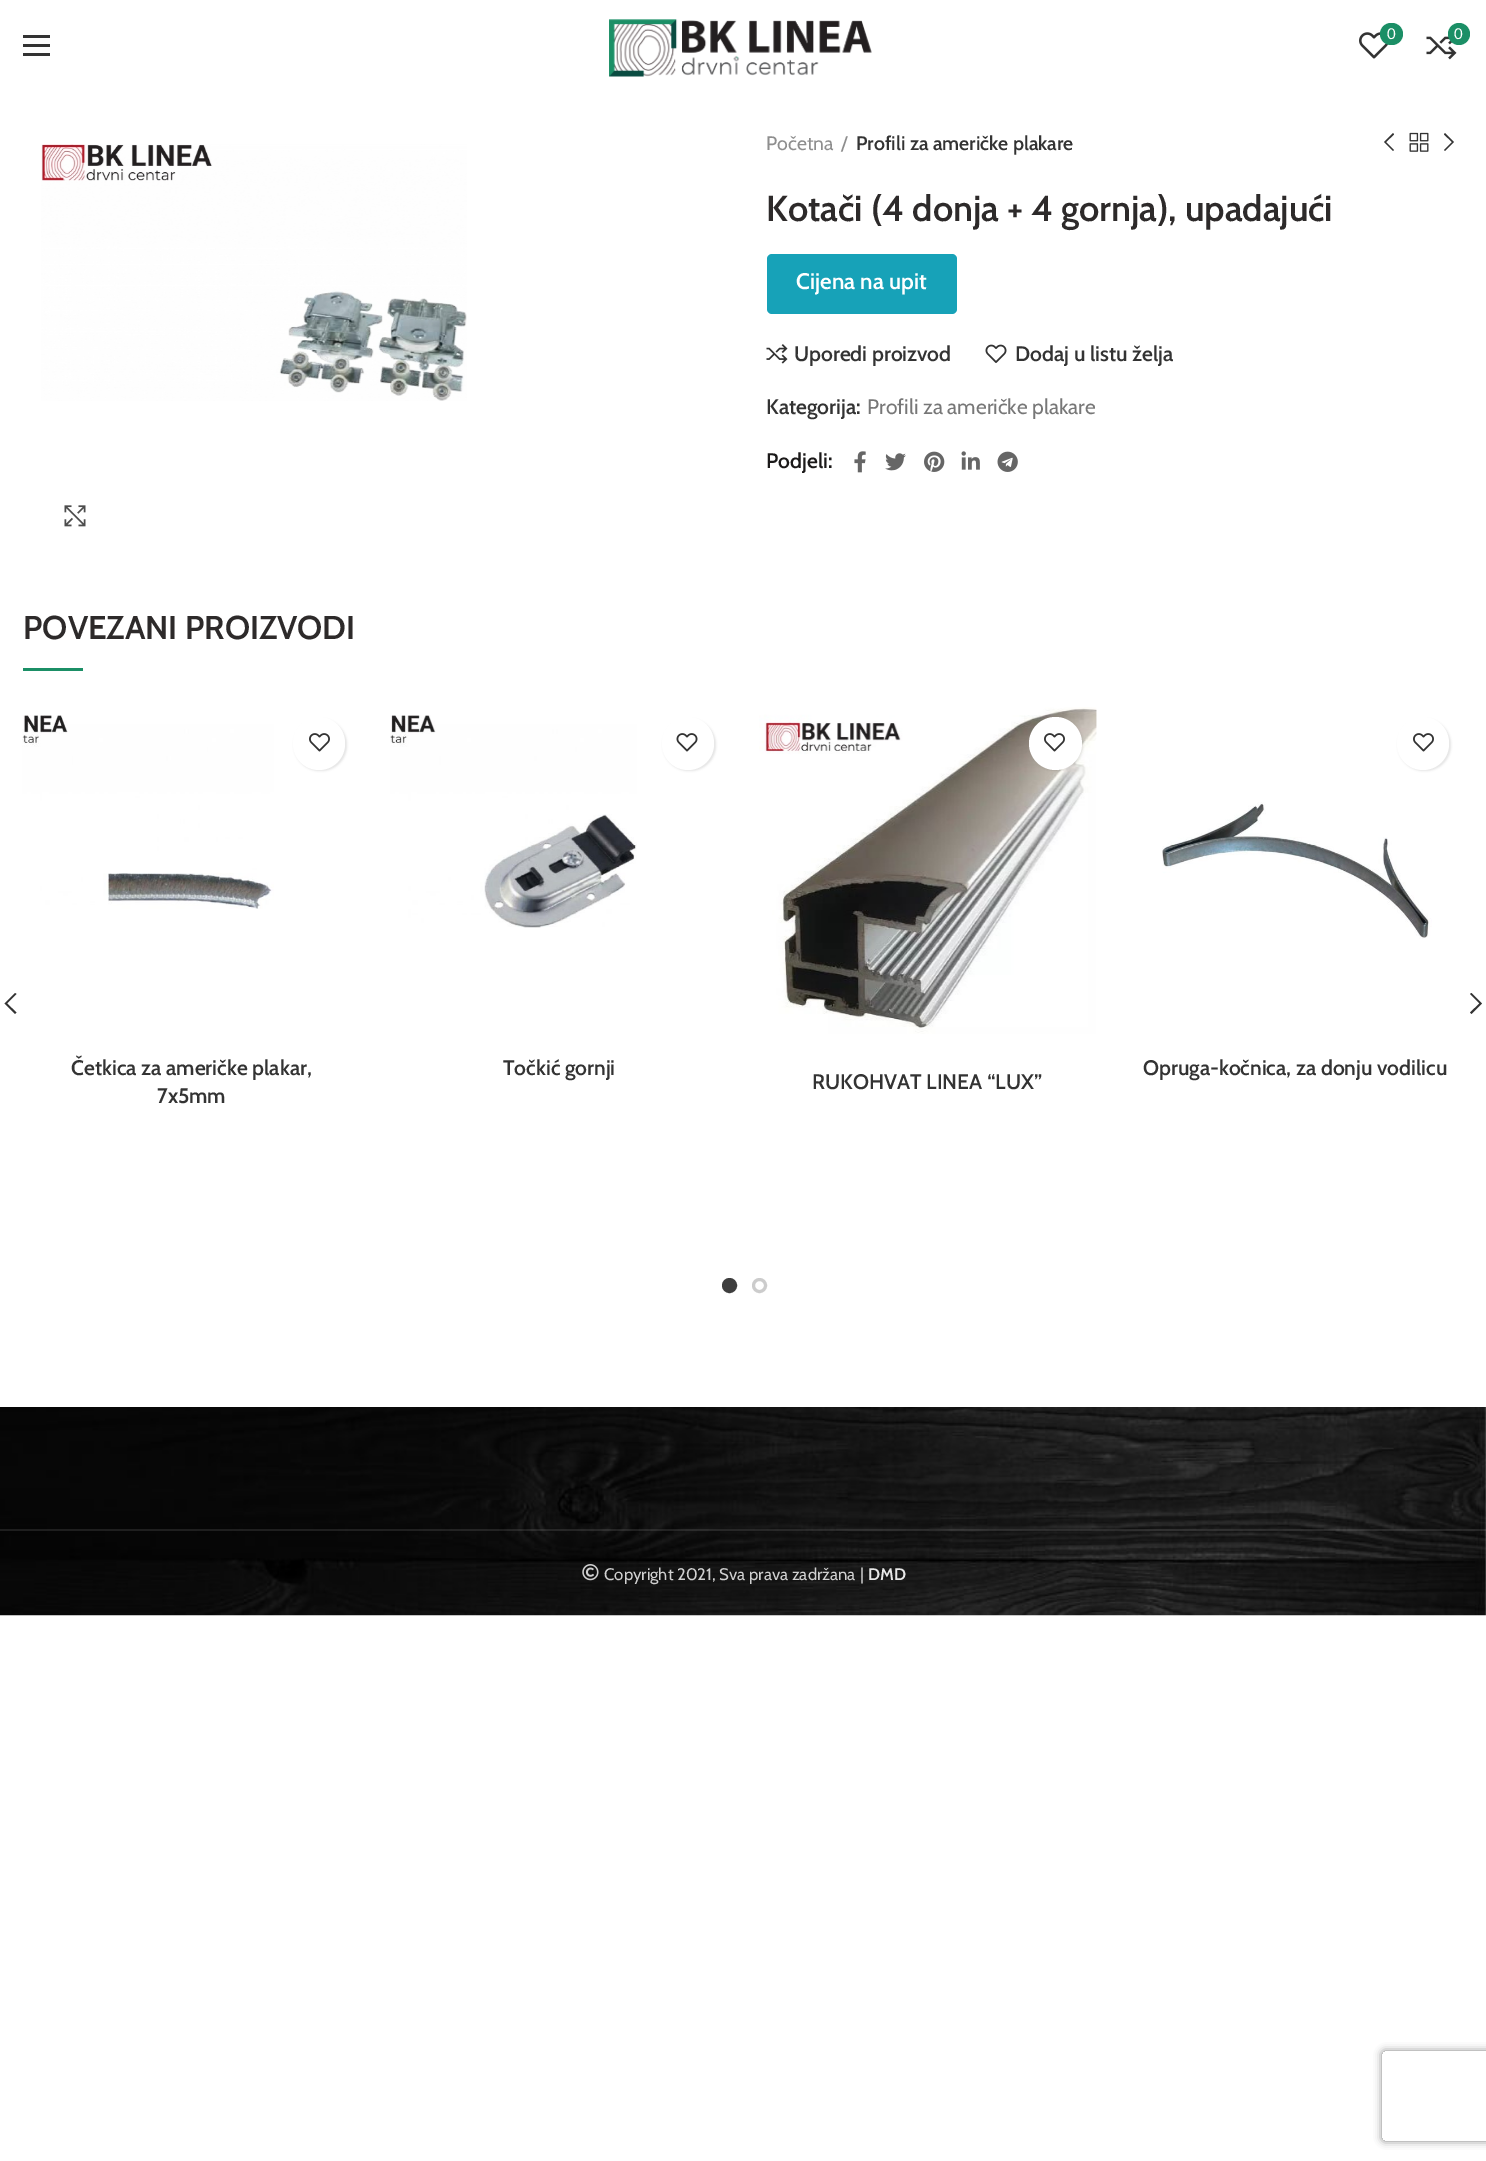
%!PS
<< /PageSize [1486 2161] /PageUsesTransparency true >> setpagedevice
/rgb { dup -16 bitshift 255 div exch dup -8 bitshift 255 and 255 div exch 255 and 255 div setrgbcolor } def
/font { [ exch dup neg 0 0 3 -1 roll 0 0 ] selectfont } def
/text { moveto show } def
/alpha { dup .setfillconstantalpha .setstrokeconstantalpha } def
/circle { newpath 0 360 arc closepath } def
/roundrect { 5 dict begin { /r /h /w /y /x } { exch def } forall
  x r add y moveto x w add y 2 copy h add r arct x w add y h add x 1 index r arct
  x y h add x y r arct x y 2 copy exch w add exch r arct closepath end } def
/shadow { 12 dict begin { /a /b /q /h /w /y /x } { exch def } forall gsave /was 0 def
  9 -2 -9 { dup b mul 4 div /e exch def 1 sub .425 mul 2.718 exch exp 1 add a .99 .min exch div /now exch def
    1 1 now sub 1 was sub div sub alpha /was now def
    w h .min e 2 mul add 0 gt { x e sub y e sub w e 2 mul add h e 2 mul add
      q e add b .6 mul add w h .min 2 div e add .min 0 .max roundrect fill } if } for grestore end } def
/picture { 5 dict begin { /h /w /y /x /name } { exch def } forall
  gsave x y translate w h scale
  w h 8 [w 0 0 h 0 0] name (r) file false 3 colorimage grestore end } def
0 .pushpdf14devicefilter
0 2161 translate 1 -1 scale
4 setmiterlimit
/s1 { /Lato-Regular 15 font 16#FFFFFF rgb } def
/s2 { /Cabin-Regular 19.5 font 16#8E8E8E rgb } def
/s3 { /Cabin-SemiBold 19.5 font 16#333333 rgb } def
/s4 { /Cabin-SemiBold 36 font 16#2D2A2A rgb } def
/s5 { /Cabin-SemiBold 22.5 font 16#FFFFFF rgb } def
/s6 { /Cabin-SemiBold 21 font 16#333333 rgb } def
/s7 { /Cabin-Regular 21 font 16#777777 rgb } def
/s8 { /Cabin-SemiBold 21 font 16#1B1919 rgb } def
/s9 { /Cabin-SemiBold 33 font 16#2D2A2A rgb } def
/s10 { /Cabin-Regular 16.75 font 16#D0D0D0 rgb } def
/s11 { /Cabin-SemiBold 16.75 font 16#E8E8E8 rgb } def
16#FFFFFF rgb
0 0 1486 2161 rectfill
16#333333 rgb
23 44 27 3 rectfill
23 35 27 3 rectfill
23 53 27 3 rectfill
(pic1.raw) 609 19 263 58 picture
(pic2.raw) 1359 32 30 27 picture
16#1B8F66 rgb
1380 23 23 22 11 roundrect fill
s1
(0) 1387 39 text
(pic3.raw) 1426 32 31 28 picture
16#1B8F66 rgb
1459 34 11 circle fill
s1
(0) 1454 39 text
(pic4.raw) 41 144 426 257 picture
(pic5.raw) 64 505 22 22 picture
s2
(Početna) 766 150 text
(/) 841 150 text
s3
(Profili za američke plakare) 856 150 text
1394 134.5 moveto 1386 142 lineto 1394 150 lineto 1393 151 lineto 1384 142 lineto 1393 133 lineto closepath fill
(pic6.raw) 1409 132 20 20 picture
1445 133 moveto 1454 142 lineto 1445 151 lineto 1444 150 lineto 1452 142 lineto 1444 134.5 lineto closepath fill
s4
(Kotači \(4 donja + 4 gornja\), upadajući) 766 221 text
16#17A2B8 rgb
767 254 190 60 5 roundrect fill
s5
(Cijena na upit) 796 289 text
(pic7.raw) 766 344 22 20 picture
s6
(Uporedi proizvod) 794 361 text
(pic8.raw) 985 344 22 19 picture
(Dodaj u listu želja) 1015 361 text
(Kategorija:) 766 414 text
s7
(Profili za američke plakare) 867 414 text
s8
(Podjeli:) 766 468 text
(pic9.raw) 854 451 12 22 picture
(pic10.raw) 885 453 21 18 picture
(pic11.raw) 924 451 21 21 picture
(pic12.raw) 961 451 19 19 picture
(pic13.raw) 997 451 21 21 picture
s9
(POVEZANI PROIZVODI) 23 639 text
16#1B8F66 rgb
23 668 60 3 rectfill
16#333333 rgb
16.5 994 moveto 7 1003.5 lineto 16.5 1012.5 lineto 15 1014 lineto 4.5 1003.5 lineto 15 993 lineto closepath fill
1471.5 993 moveto 1482 1003.5 lineto 1471.5 1014 lineto 1470 1012.5 lineto 1479.5 1003.5 lineto 1470 994 lineto closepath fill
(pic14.raw) 22 715 252 194 picture
16#000000 rgb
294 719 53 52 26 1 0.1 shadow
16#FFFFFF rgb
293 717 52 53 26 roundrect fill
(pic15.raw) 309 733 21 19 picture
s6
(Četkica za američke plakar,) 71 1075 text
(7x5mm) 157 1103 text
(pic16.raw) 390 715 247 213 picture
16#000000 rgb
663 719 53 52 26 1 0.1 shadow
16#FFFFFF rgb
662 717 52 53 26 roundrect fill
(pic17.raw) 676 733 22 19 picture
s6
(Točkić gornji) 503 1075 text
(pic18.raw) 759 707 338 327 picture
16#000000 rgb
1031 719 52 52 26 1 0.1 shadow
16#FFFFFF rgb
1055.5 743.5 26.5 circle fill
(pic15.raw) 1044 733 21 19 picture
s6
(RUKOHVAT LINEA “LUX”) 812 1089 text
(pic19.raw) 1162 802 270 137 picture
16#000000 rgb
1398 719 53 52 26 1 0.1 shadow
16#FFFFFF rgb
1397 717 52 53 26 roundrect fill
(pic15.raw) 1413 733 21 19 picture
s6
(Opruga-kočnica, za donju vodilicu) 1143 1075 text
16#3E3E3E rgb
729.5 1285.5 6 circle gsave fill grestore
3 setlinewidth
stroke
16#CCCCCC rgb
759.5 1285.5 6 circle stroke
(pic20.raw) 0 1407 1486 209 picture
0.1 alpha
16#FFFFFF rgb
0 1529 1486 2 rectfill
1 alpha
(pic21.raw) 582 1564 17 17 picture
s10
(Copyright 2021, Sva prava zadržana) 604 1580 text
(|) 860 1580 text
s11
(DMD) 868 1580 text
gsave
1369 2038 moveto 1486 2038 lineto 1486 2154 lineto 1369 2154 lineto closepath 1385 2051 moveto 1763 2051 lineto 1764.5 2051 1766 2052.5 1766 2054 curveto 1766 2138 lineto 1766 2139.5 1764.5 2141 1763 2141 curveto 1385 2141 lineto 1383.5 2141 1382 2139.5 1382 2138 curveto 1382 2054 lineto 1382 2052.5 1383.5 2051 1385 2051 curveto closepath eoclip newpath
16#808080 rgb
1382 2051 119 90 3 4 1 shadow
grestore
.poppdf14devicefilter showpage
